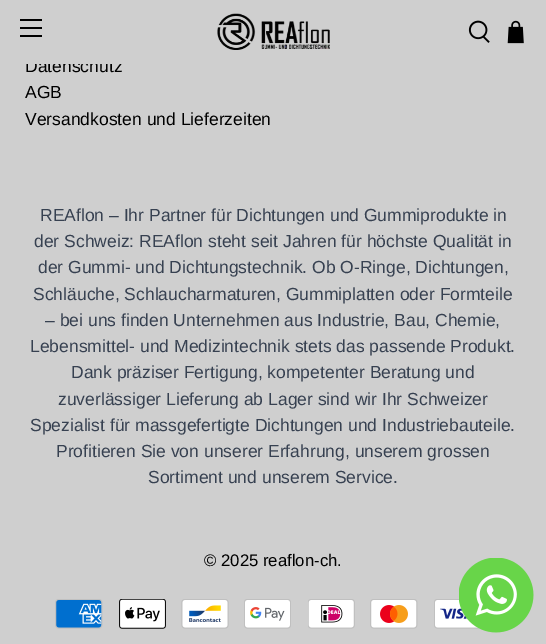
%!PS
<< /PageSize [546 644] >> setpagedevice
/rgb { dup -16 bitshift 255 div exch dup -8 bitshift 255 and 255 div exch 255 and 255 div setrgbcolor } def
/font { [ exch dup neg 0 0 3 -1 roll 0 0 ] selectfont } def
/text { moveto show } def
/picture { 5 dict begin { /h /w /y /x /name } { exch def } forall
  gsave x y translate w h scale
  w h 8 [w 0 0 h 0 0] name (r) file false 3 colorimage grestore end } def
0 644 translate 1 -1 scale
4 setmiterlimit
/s1 { /LiberationSans-Regular 17.5 font 16#000000 rgb } def
/s2 { /LiberationSans-Regular 17.5 font 16#374151 rgb } def
/s3 { /LiberationSans-Regular 16.75 font 16#000000 rgb } def
16#CFCFCF rgb
0 0 546 644 rectfill
s1
(Datenschutz) 25 72 text
16#CFCFCF rgb
26 59 96 5 rectfill
16#000000 rgb
20 19 22 2 rectfill
20 27 22 2 rectfill
20 35 22 2 rectfill
(pic1.raw) 217 13 113 37 picture
(pic2.raw) 468 20 22 23 picture
(pic3.raw) 507 20 17 24 picture
(AGB) 25 98 text
(Versandkosten und Lieferzeiten) 25 125 text
s2
(REAflon – Ihr Partner für Dichtungen und Gummiprodukte in) 40 221 text
(der Schweiz: REAflon steht seit Jahren für höchste Qualität in) 34 247 text
(der Gummi- und Dichtungstechnik. Ob O-Ringe, Dichtungen,) 38 273 text
(Schläuche, Schlaucharmaturen, Gummiplatten oder Formteile) 33 300 text
(– bei uns finden Unternehmen aus Industrie, Bau, Chemie,) 45 326 text
(Lebensmittel- und Medizintechnik stets das passende Produkt.) 30 352 text
(Dank präziser Fertigung, kompetenter Beratung und) 71 378 text
(zuverlässiger Lieferung ab Lager sind wir Ihr Schweizer) 58 405 text
(Spezialist für massgefertigte Dichtungen und Industriebauteile.) 30 431 text
(Profitieren Sie von unserer Erfahrung, unserem grossen) 56 457 text
(Sortiment und unserem Service.) 148 483 text
s3
(© 2025 reaflon-ch.) 204 566 text
(pic4.raw) 55 599 48 30 picture
(pic5.raw) 119 599 47 30 picture
(pic6.raw) 181 599 48 30 picture
(pic7.raw) 244 599 47 30 picture
(pic8.raw) 308 599 47 30 picture
(pic9.raw) 370 599 48 30 picture
(pic10.raw) 434 599 45 30 picture
(pic11.raw) 459 558 75 75 picture
showpage
